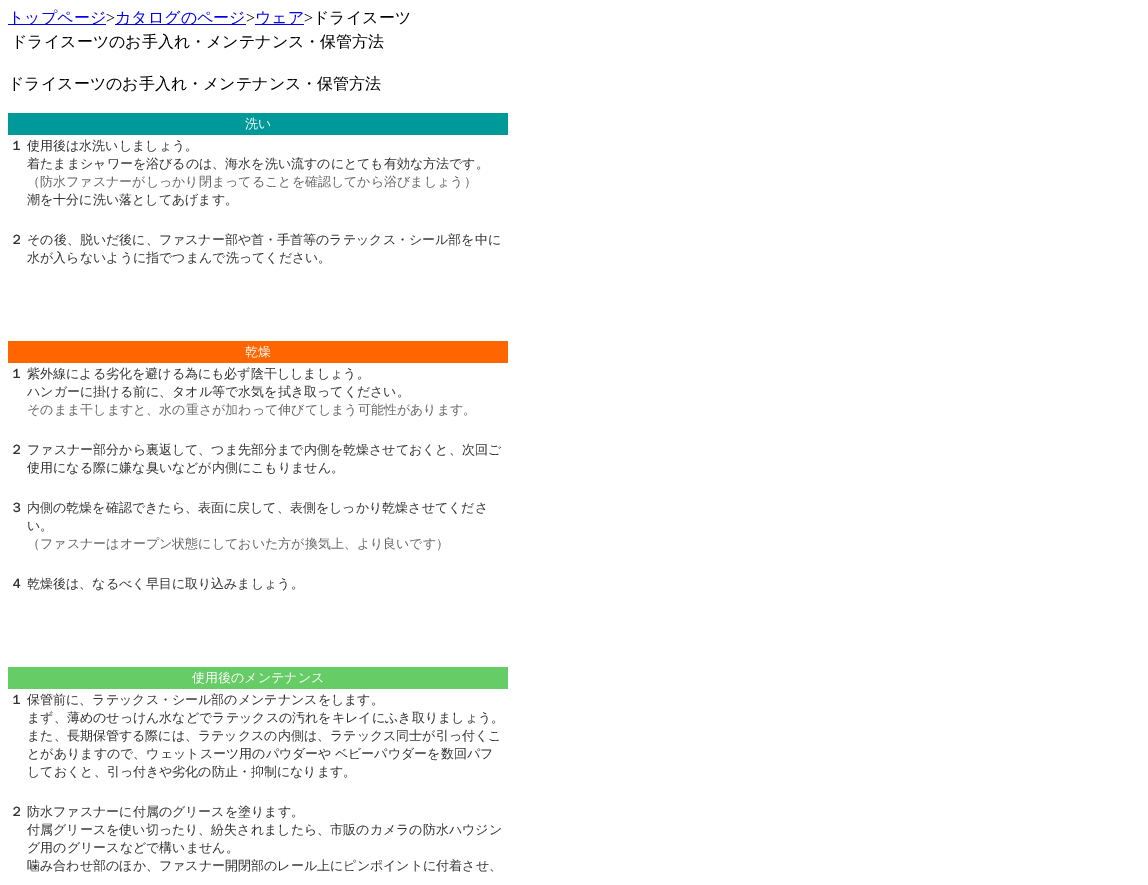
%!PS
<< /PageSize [1148 885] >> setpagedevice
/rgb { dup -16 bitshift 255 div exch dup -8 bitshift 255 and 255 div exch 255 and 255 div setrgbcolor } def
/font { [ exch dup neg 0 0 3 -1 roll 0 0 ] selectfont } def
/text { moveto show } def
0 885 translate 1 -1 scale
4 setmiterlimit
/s1 { /WenQuanYiZenHei-Medium 16 font 16#0000EE rgb } def
/s2 { /LiberationSerif-Regular 16 font 16#000000 rgb } def
/s3 { /WenQuanYiZenHei-Medium 16 font 16#000000 rgb } def
/s4 { /WenQuanYiZenHei-Medium 13 font 16#FFFFFF rgb } def
/s5 { /WenQuanYiZenHei-Bold 13 font 16#333333 rgb } def
/s6 { /WenQuanYiZenHei-Medium 13 font 16#333333 rgb } def
/s7 { /WenQuanYiZenHei-Medium 13 font 16#666666 rgb } def
16#FFFFFF rgb
0 0 1148 885 rectfill
16#0000EE rgb
8 24 98 1 rectfill
s1
(トップページ) 8 23 text
s2
(>) 106 23 text
16#0000EE rgb
115 24 131 1 rectfill
s1
(カタログのページ) 115 23 text
s2
(>) 246 23 text
16#0000EE rgb
255 24 49 1 rectfill
s1
(ウェア) 255 23 text
s2
(>) 304 23 text
s3
(ドライスーツ) 313 23 text
(ドライスーツのお手入れ・メンテナンス・保管方法) 11 47 text
(ドライスーツのお手入れ・メンテナンス・保管方法) 8 89 text
16#009999 rgb
8 113 500 22 rectfill
s4
(洗い) 245 128 text
s5
(１) 10 150 text
s6
(使用後は水洗いしましょう。) 27 150 text
(着たままシャワーを浴びるのは、海水を洗い流すのにとても有効な方法です。) 27 168 text
s7
(（防水ファスナーがしっかり閉まってることを確認してから浴びましょう）) 27 186 text
s6
(潮を十分に洗い落としてあげます。) 27 204 text
s5
(２) 10 244 text
s6
(その後、脱いだ後に、ファスナー部や首・手首等のラテックス・シール部を中に) 27 244 text
(水が入らないように指でつまんで洗ってください。) 27 262 text
16#FF6600 rgb
8 341 500 22 rectfill
s4
(乾燥) 245 356 text
s5
(１) 10 378 text
s6
(紫外線による劣化を避ける為にも必ず陰干ししましょう。) 27 378 text
(ハンガーに掛ける前に、タオル等で水気を拭き取ってください。) 27 396 text
s7
(そのまま干しますと、水の重さが加わって伸びてしまう可能性があります。) 27 414 text
s5
(２) 10 454 text
s6
(ファスナー部分から裏返して、つま先部分まで内側を乾燥させておくと、次回ご) 27 454 text
(使用になる際に嫌な臭いなどが内側にこもりません。) 27 472 text
s5
(３) 10 512 text
s6
(内側の乾燥を確認できたら、表面に戻して、表側をしっかり乾燥させてくださ) 27 512 text
(い。) 27 530 text
s7
(（ファスナーはオープン状態にしておいた方が換気上、より良いです）) 27 548 text
s5
(４) 10 588 text
s6
(乾燥後は、なるべく早目に取り込みましょう。) 27 588 text
16#66CC66 rgb
8 667 500 22 rectfill
s4
(使用後のメンテナンス) 192 682 text
s5
(１) 10 704 text
s6
(保管前に、ラテックス・シール部のメンテナンスをします。) 27 704 text
(まず、薄めのせっけん水などでラテックスの汚れをキレイにふき取りましょう。) 27 722 text
(また、長期保管する際には、ラテックスの内側は、ラテックス同士が引っ付くこ) 27 740 text
27 758 moveto -1 0 32 (とがありますので、ウェットスーツ用のパウダーや ベビーパウダーを数回パフ) widthshow
(しておくと、引っ付きや劣化の防止・抑制になります。) 27 776 text
s5
(２) 10 816 text
s6
(防水ファスナーに付属のグリースを塗ります。) 27 816 text
(付属グリースを使い切ったり、紛失されましたら、市販のカメラの防水ハウジン) 27 834 text
(グ用のグリースなどで構いません。) 27 852 text
(噛み合わせ部のほか、ファスナー開閉部のレール上にピンポイントに付着させ、) 27 870 text
showpage
